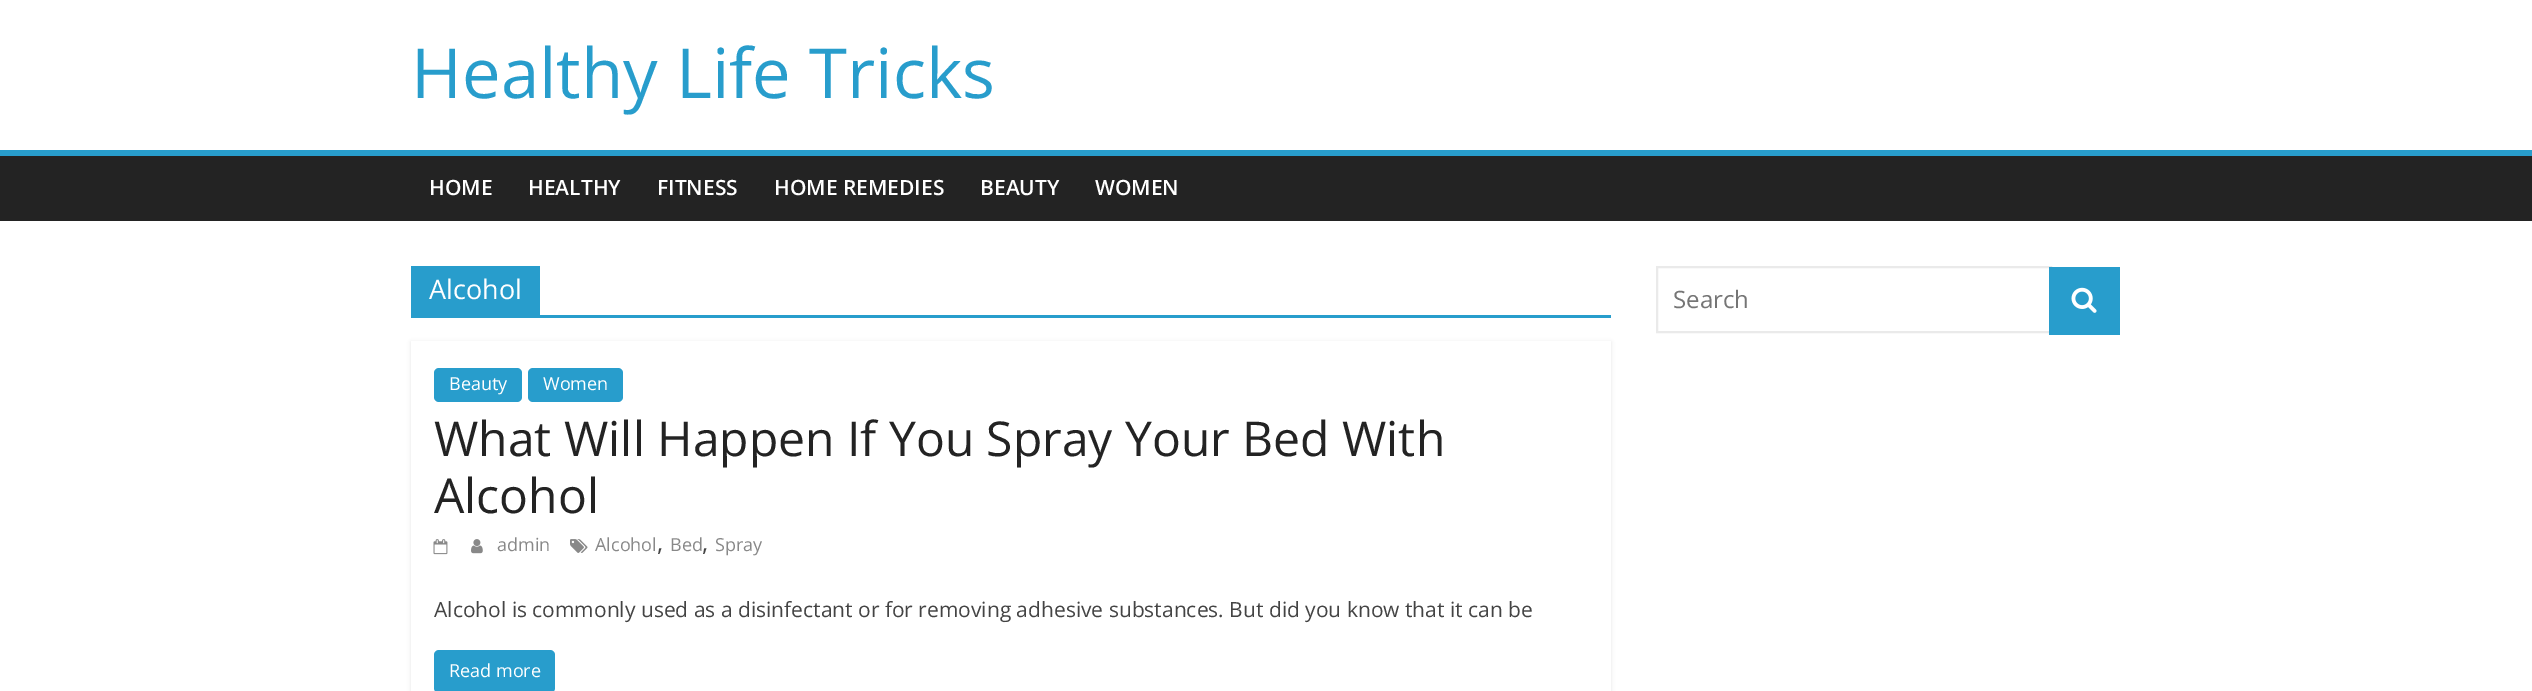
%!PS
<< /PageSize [2532 691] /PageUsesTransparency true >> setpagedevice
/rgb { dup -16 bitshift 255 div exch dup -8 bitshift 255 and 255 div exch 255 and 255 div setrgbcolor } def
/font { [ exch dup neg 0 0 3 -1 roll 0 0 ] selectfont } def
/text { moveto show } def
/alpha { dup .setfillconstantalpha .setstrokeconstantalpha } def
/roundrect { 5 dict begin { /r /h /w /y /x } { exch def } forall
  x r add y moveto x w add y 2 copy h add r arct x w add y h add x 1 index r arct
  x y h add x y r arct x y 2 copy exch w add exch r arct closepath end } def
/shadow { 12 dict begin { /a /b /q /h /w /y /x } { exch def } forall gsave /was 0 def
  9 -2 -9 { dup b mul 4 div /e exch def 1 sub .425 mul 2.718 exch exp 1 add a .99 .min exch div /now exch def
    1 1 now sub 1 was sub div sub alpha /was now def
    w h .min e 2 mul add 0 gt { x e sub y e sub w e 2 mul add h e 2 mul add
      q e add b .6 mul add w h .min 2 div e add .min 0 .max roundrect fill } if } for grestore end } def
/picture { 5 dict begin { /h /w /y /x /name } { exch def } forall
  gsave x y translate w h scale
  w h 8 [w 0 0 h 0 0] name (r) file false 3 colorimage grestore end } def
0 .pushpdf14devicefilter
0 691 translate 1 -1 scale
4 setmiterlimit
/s1 { /OpenSans-Regular 69 font 16#289DCC rgb } def
/s2 { /OpenSans-SemiBold 21 font 16#FFFFFF rgb } def
/s3 { /OpenSans-Regular 27 font 16#FFFFFF rgb } def
/s4 { /OpenSans-Regular 18 font 16#FFFFFF rgb } def
/s5 { /OpenSans-Regular 48 font 16#232323 rgb } def
/s6 { /OpenSans-Regular 18 font 16#888888 rgb } def
/s7 { /OpenSans-Regular 24 font 16#444444 rgb } def
/s8 { /OpenSans-Regular 21 font 16#444444 rgb } def
/s9 { /OpenSans-Regular 24 font 16#757575 rgb } def
16#FFFFFF rgb
0 0 2532 691 rectfill
s1
(Healthy Life Tricks) 411 98 text
16#232323 rgb
0 156 2532 65 rectfill
16#289DCC rgb
0 150 2532 6 rectfill
s2
(HOME) 429 195 text
(HEALTHY) 528 195 text
(FITNESS) 657 195 text
(HOME REMEDIES) 774 195 text
(BEAUTY) 980 195 text
(WOMEN) 1095 195 text
16#289DCC rgb
411 315 1200 3 rectfill
411 266 129 49 rectfill
s3
(Alcohol) 429 299 text
gsave
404 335 moveto 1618 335 lineto 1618 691 lineto 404 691 lineto closepath 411 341 moveto 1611 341 lineto 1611 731 lineto 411 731 lineto closepath eoclip newpath
16#000000 rgb
411 342 1200 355 0 2 0.1 shadow
grestore
16#289DCC rgb
434 368 88 34 5 roundrect fill
s4
(Beauty) 449 390 text
16#289DCC rgb
528 368 95 34 5 roundrect fill
s4
(Women) 543 390 text
s5
(What Will Happen If You Spray Your Bed With) 434 456 text
(Alcohol) 434 513 text
(pic1.raw) 433 539 15 16 picture
(pic2.raw) 471 539 12 15 picture
s6
(admin) 497 551 text
(pic3.raw) 570 539 18 14 picture
(Alcohol) 595 551 text
s7
(,) 657 551 text
s6
(Bed) 670 551 text
s7
(,) 702 551 text
s6
(Spray) 715 551 text
s8
(Alcohol is commonly used as a disinfectant or for removing adhesive substances. But did you know that it can be) 434 617 text
16#289DCC rgb
434 650 121 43 5 roundrect fill
s4
(Read more) 449 677 text
16#EAEAEA rgb
2 setlinewidth
1657 267 394 65 rectstroke
s9
(Search) 1673 308 text
16#289DCC rgb
2049 267 71 68 rectfill
(pic4.raw) 2071 287 26 26 picture
.poppdf14devicefilter showpage
